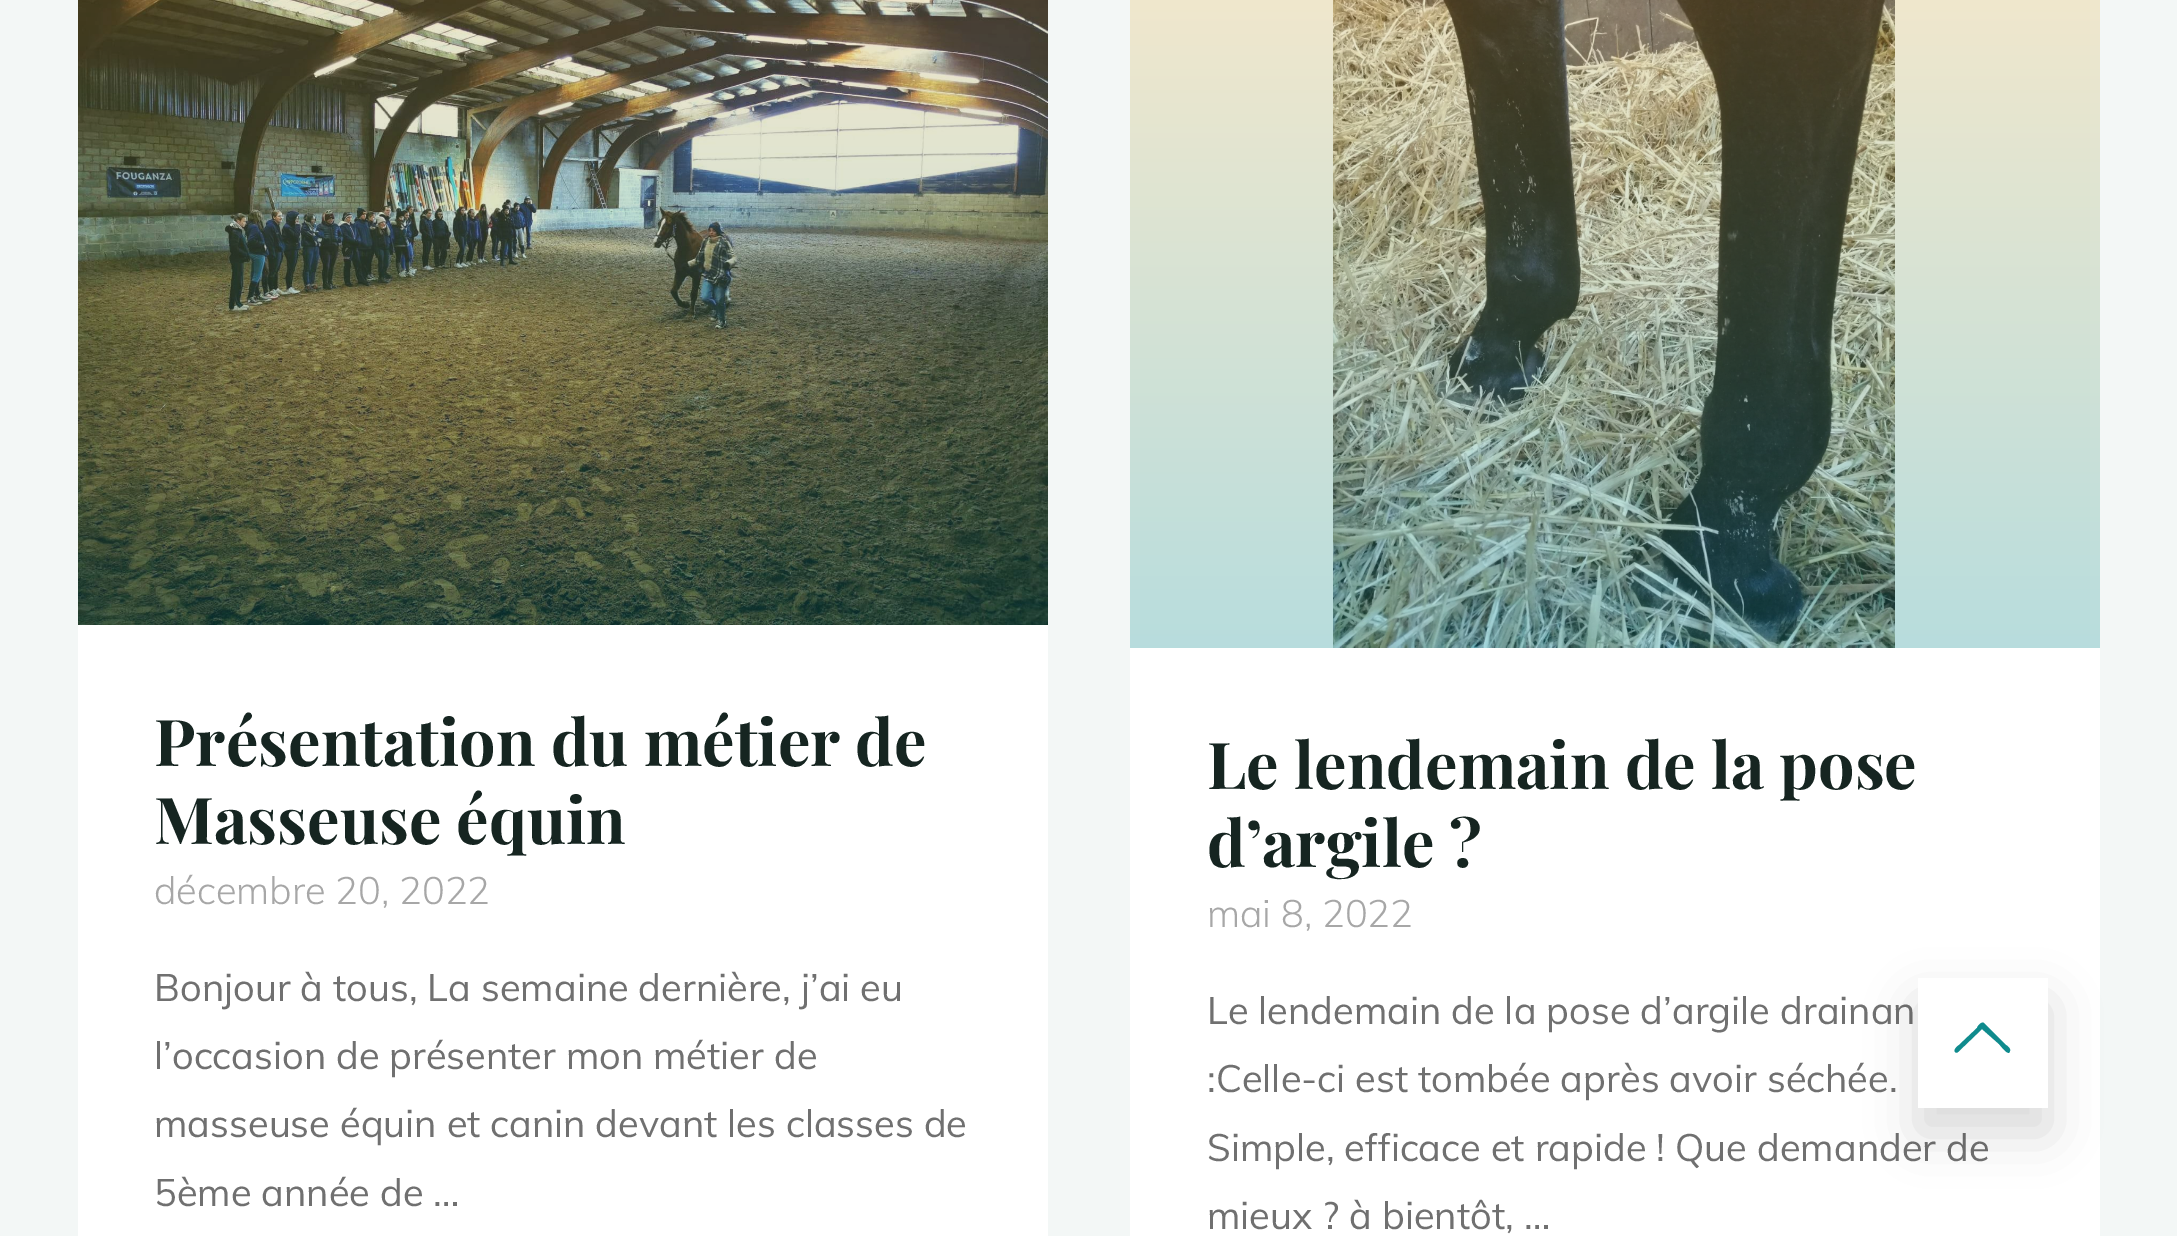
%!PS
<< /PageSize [2177 1236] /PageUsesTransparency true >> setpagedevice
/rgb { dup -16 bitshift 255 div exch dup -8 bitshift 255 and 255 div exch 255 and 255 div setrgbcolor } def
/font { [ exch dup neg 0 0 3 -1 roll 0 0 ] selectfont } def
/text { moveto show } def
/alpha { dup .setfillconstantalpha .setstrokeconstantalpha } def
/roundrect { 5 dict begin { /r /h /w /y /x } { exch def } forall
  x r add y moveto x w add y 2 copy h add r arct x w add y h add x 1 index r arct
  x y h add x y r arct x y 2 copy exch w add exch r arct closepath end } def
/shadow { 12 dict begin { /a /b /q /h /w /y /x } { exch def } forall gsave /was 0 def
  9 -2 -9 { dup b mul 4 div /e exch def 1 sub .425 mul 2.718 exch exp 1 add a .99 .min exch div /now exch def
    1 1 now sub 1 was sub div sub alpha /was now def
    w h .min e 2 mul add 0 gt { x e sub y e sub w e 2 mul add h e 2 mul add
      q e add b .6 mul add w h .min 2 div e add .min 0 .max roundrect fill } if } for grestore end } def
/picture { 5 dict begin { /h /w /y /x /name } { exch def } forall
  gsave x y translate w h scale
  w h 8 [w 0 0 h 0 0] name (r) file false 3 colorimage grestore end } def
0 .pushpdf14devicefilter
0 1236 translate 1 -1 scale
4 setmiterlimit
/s1 { /PlayfairDisplay-Bold 64.6 font 16#162521 rgb } def
/s2 { /Muli-Light 38 font 16#A7A7A7 rgb } def
/s3 { /Muli-Regular 38 font 16#707070 rgb } def
16#F3F7F6 rgb
0 0 2177 1236 rectfill
16#FFFFFF rgb
78 625 970 611 rectfill
(pic1.raw) 78 0 970 625 picture
s1
(Présentation du métier de) 154 766 text
(Masseuse équin) 154 844 text
s2
(décembre 20, 2022) 154 904 text
s3
(Bonjour à tous, La semaine dernière, j’ai eu) 154 1001 text
(l’occasion de présenter mon métier de) 154 1069 text
(masseuse équin et canin devant les classes de) 154 1137 text
(5ème année de …) 154 1206 text
16#FFFFFF rgb
1130 0 970 1236 rectfill
(pic2.raw) 1333 0 562 648 picture
0.3 alpha
gsave 1130 0 moveto 2100 0 lineto 2100 648 lineto 1130 648 lineto closepath clip newpath
<< /ShadingType 2 /ColorSpace /DeviceRGB /Coords [1615 -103 1615 648] /Extend [true true] /Function << /FunctionType 2 /Domain [0 1] /C0 [0.914 0.706 0.298] /C1 [0.059 0.545 0.553] /N 1 >> >> shfill grestore
1 alpha
s1
(Le lendemain de la pose) 1207 789 text
(d’argile ?) 1207 867 text
s2
(mai 8, 2022) 1207 927 text
s3
(Le lendemain de la pose d’argile drainan) 1207 1024 text
(:Celle-ci est tombée après avoir séchée.) 1207 1092 text
(Simple, efficace et rapide ! Que demander de) 1207 1161 text
(mieux ? à bientôt, …) 1207 1229 text
16#000000 rgb
1918 1003 130 130 0 25 0.15 shadow
16#FFFFFF rgb
1918 978 130 130 rectfill
16#0F8B8D rgb
1958 1052 moveto 1957 1053 1956 1053 1955 1052 curveto 1953 1049 1959 1045 1959 1045 curveto 1977 1028 lineto 1977 1027 1981 1021 1984 1023 curveto 2006 1045 lineto 2006 1045 2011 1048 2010 1051 curveto 2009 1056 2004 1050 1999 1044 curveto 1982 1029 lineto closepath fill
.poppdf14devicefilter showpage
